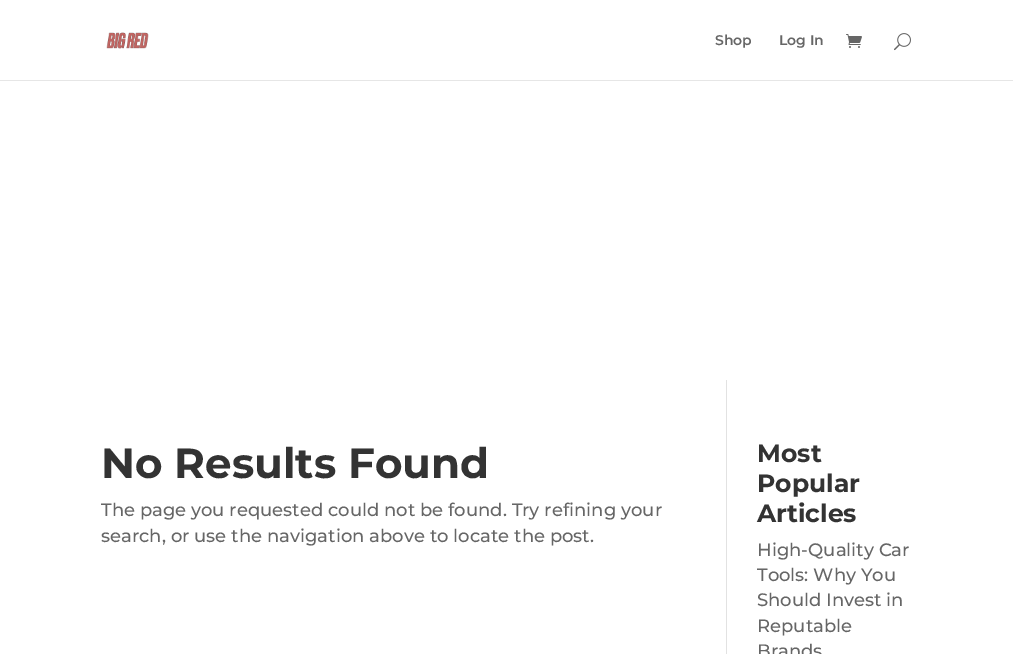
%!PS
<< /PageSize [1013 654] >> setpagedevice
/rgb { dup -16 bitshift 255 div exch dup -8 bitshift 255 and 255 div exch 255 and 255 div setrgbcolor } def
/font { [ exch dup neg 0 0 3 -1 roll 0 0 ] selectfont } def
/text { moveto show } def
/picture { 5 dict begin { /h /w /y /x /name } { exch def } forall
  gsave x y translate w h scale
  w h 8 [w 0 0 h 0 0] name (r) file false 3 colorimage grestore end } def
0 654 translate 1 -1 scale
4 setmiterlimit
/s1 { /Montserrat-SemiBold 14 font 16#666666 rgb } def
/s2 { /Montserrat-Bold 42 font 16#333333 rgb } def
/s3 { /Montserrat-Medium 18 font 16#666666 rgb } def
/s4 { /Montserrat-Bold 25 font 16#333333 rgb } def
16#FFFFFF rgb
0 0 1013 654 rectfill
16#E6E6E6 rgb
0 80 1013 1 rectfill
(pic1.raw) 106 32 43 17 picture
s1
(Shop) 715 45 text
(Log In) 779 45 text
(pic2.raw) 846 34 16 14 picture
(pic3.raw) 894 33 17 18 picture
16#E2E2E2 rgb
726 380 1 274 rectfill
s2
(No Results Found) 101 478 text
s3
(The page you requested could not be found. Try refining your) 101 516 text
(search, or use the navigation above to locate the post.) 101 542 text
s4
(Most) 757 462 text
(Popular) 757 492 text
(Articles) 757 522 text
s3
(High-Quality Car) 757 556 text
(Tools: Why You) 757 581 text
(Should Invest in) 757 606 text
(Reputable) 757 632 text
(Brands) 757 657 text
showpage
